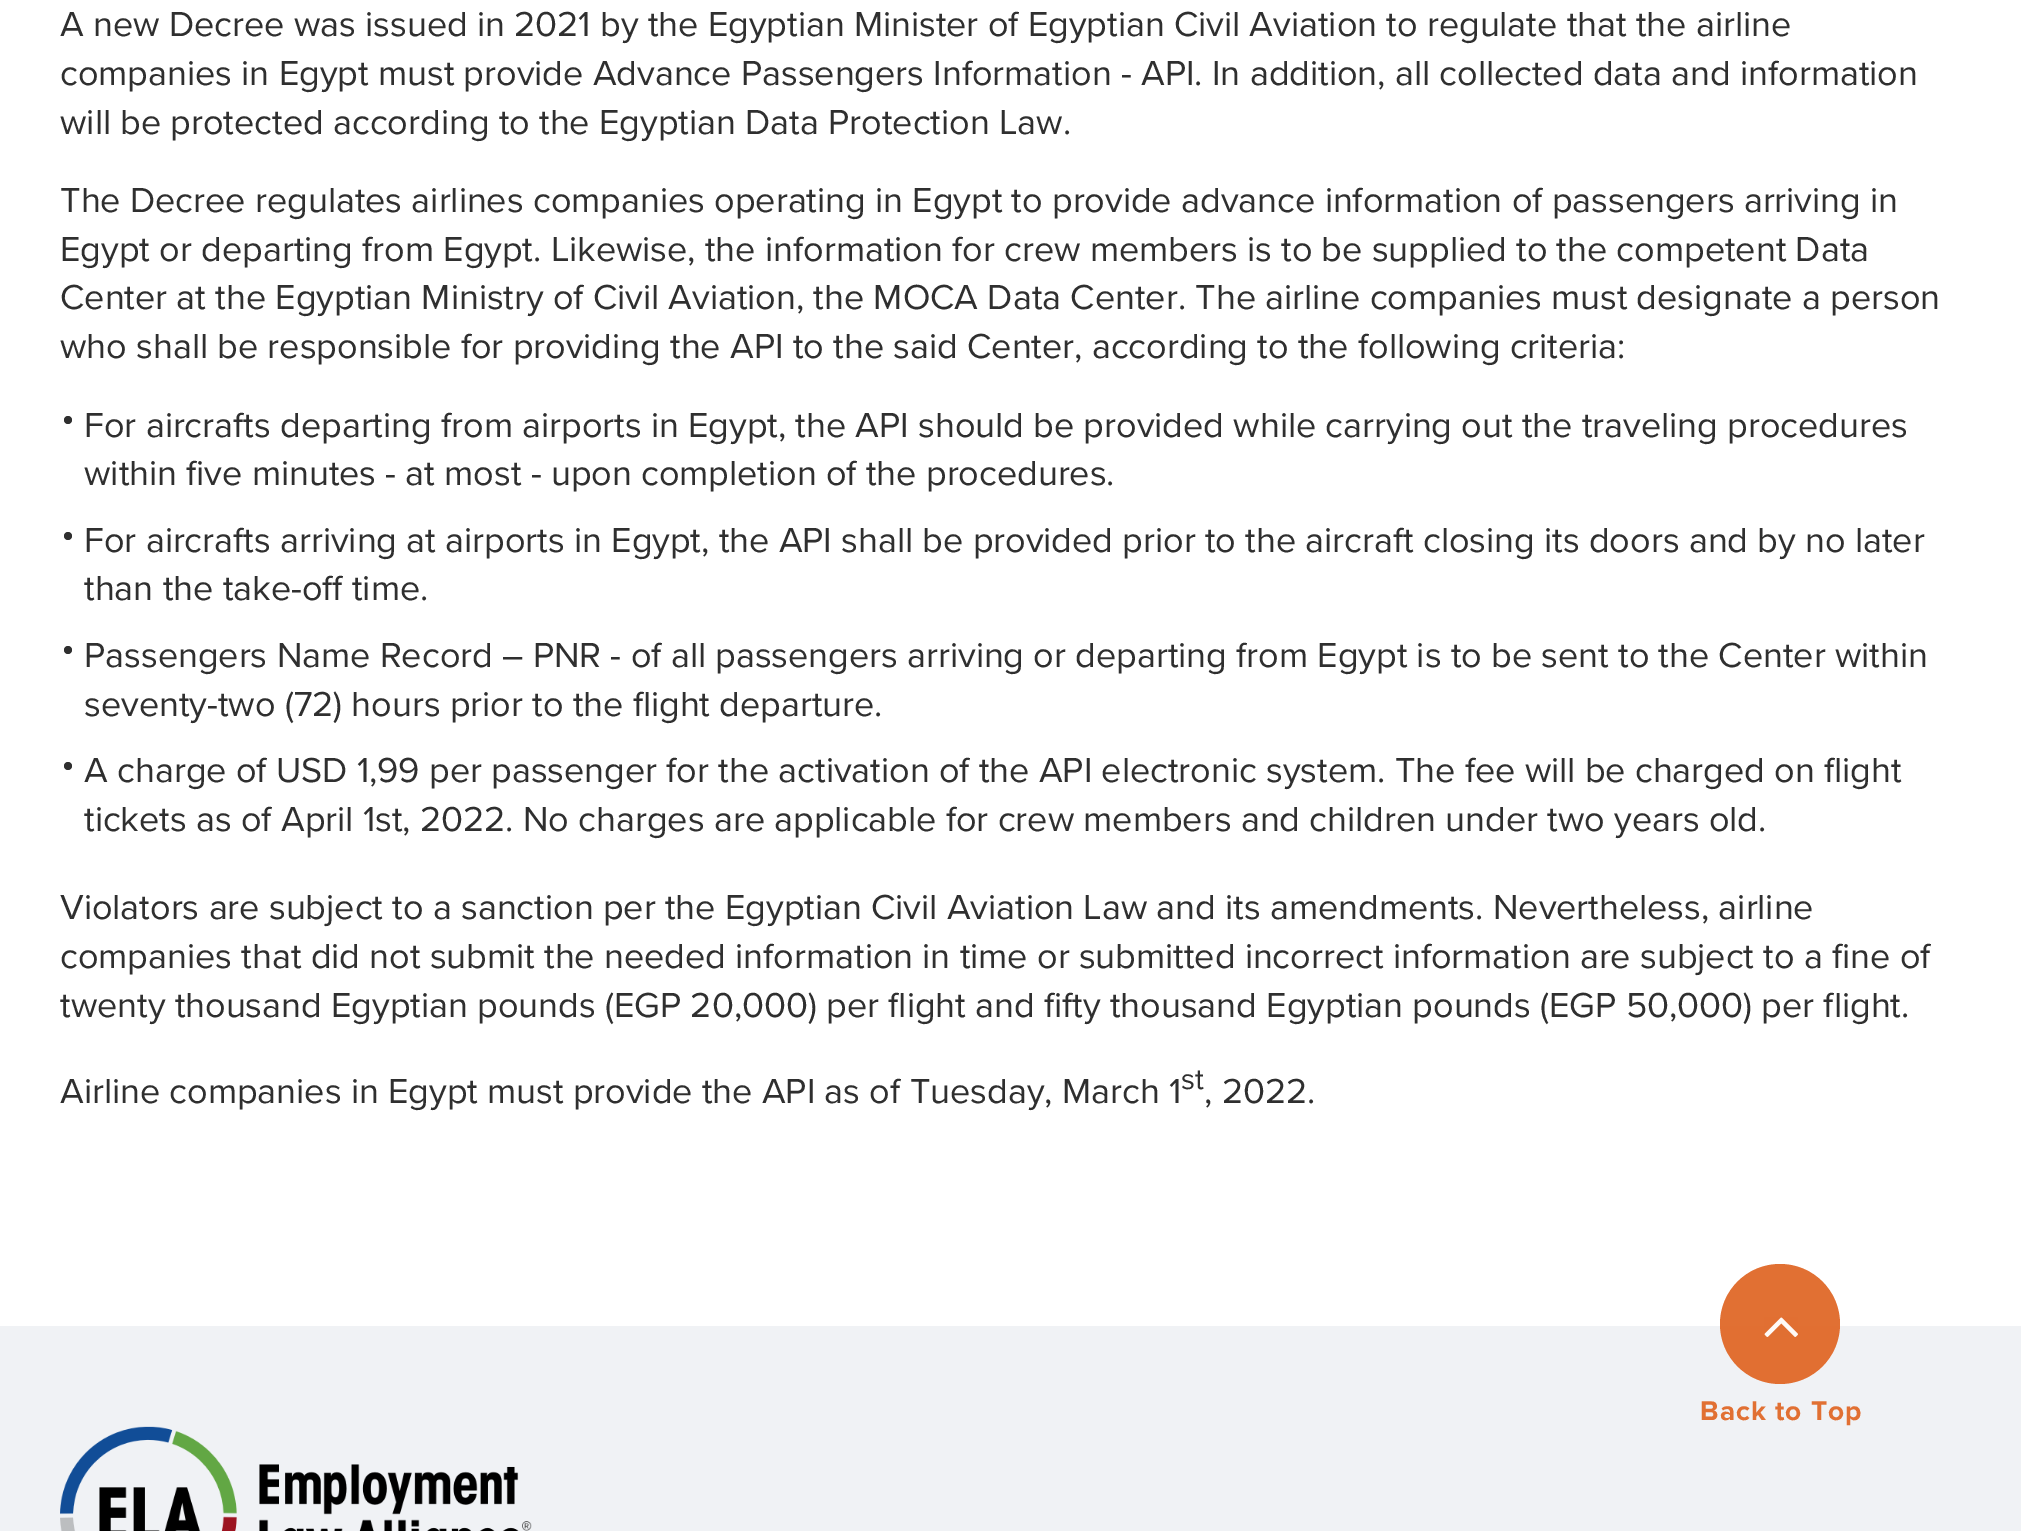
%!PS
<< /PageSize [2021 1531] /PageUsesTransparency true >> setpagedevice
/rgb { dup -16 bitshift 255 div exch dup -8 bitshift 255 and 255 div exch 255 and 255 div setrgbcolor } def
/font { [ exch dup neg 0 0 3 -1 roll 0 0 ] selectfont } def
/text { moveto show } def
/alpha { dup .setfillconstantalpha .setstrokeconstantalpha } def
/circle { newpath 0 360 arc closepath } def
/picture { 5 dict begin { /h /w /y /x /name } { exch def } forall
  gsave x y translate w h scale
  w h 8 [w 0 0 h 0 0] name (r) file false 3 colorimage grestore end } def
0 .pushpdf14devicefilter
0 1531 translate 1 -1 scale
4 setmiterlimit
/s1 { /ProximaNova-Regular 36 font 16#2F2F2F rgb } def
/s2 { /ProximaNova-Regular 30 font 16#2F2F2F rgb } def
16#FFFFFF rgb
0 0 2021 1531 rectfill
s1
(A new Decree was issued in 2021 by the Egyptian Minister of Egyptian Civil Aviation to regulate that the airline) 60 36 text
(companies in Egypt must provide Advance Passengers Information - API. In addition, all collected data and information) 60 85 text
(will be protected according to the Egyptian Data Protection Law.) 60 134 text
(The Decree regulates airlines companies operating in Egypt to provide advance information of passengers arriving in) 60 212 text
(Egypt or departing from Egypt. Likewise, the information for crew members is to be supplied to the competent Data) 60 261 text
(Center at the Egyptian Ministry of Civil Aviation, the MOCA Data Center. The airline companies must designate a person) 60 309 text
(who shall be responsible for providing the API to the said Center, according to the following criteria:) 60 358 text
68 420 4 circle fill
(For aircrafts departing from airports in Egypt, the API should be provided while carrying out the traveling procedures) 84 437 text
(within five minutes - at most - upon completion of the procedures.) 84 485 text
68 536 4 circle fill
(For aircrafts arriving at airports in Egypt, the API shall be provided prior to the aircraft closing its doors and by no later) 84 552 text
(than the take-off time.) 84 600 text
68 650 4 circle fill
(Passengers Name Record – PNR - of all passengers arriving or departing from Egypt is to be sent to the Center within) 84 667 text
(seventy-two \(72\) hours prior to the flight departure.) 84 716 text
68 766 4 circle fill
(A charge of USD 1,99 per passenger for the activation of the API electronic system. The fee will be charged on flight) 84 782 text
(tickets as of April 1st, 2022. No charges are applicable for crew members and children under two years old.) 84 831 text
(Violators are subject to a sanction per the Egyptian Civil Aviation Law and its amendments. Nevertheless, airline) 60 919 text
(companies that did not submit the needed information in time or submitted incorrect information are subject to a fine of) 60 968 text
(twenty thousand Egyptian pounds \(EGP 20,000\) per flight and fifty thousand Egyptian pounds \(EGP 50,000\) per flight.) 60 1017 text
(Airline companies in Egypt must provide the API as of Tuesday, March 1) 60 1103 text
s2
(st) 1181 1089 text
s1
(, 2022.) 1204 1103 text
16#F0F2F5 rgb
0 1326 2021 205 rectfill
0.97 alpha
16#E06B2C rgb
1780 1324 60 circle fill
1 alpha
(pic1.raw) 1764 1317 34 20 picture
/ProximaNova-Bold 28 font
16#E17033 rgb
1700 1420 moveto 1 0 (Back to Top) ashow
(pic2.raw) 60 1426 472 105 picture
.poppdf14devicefilter showpage
